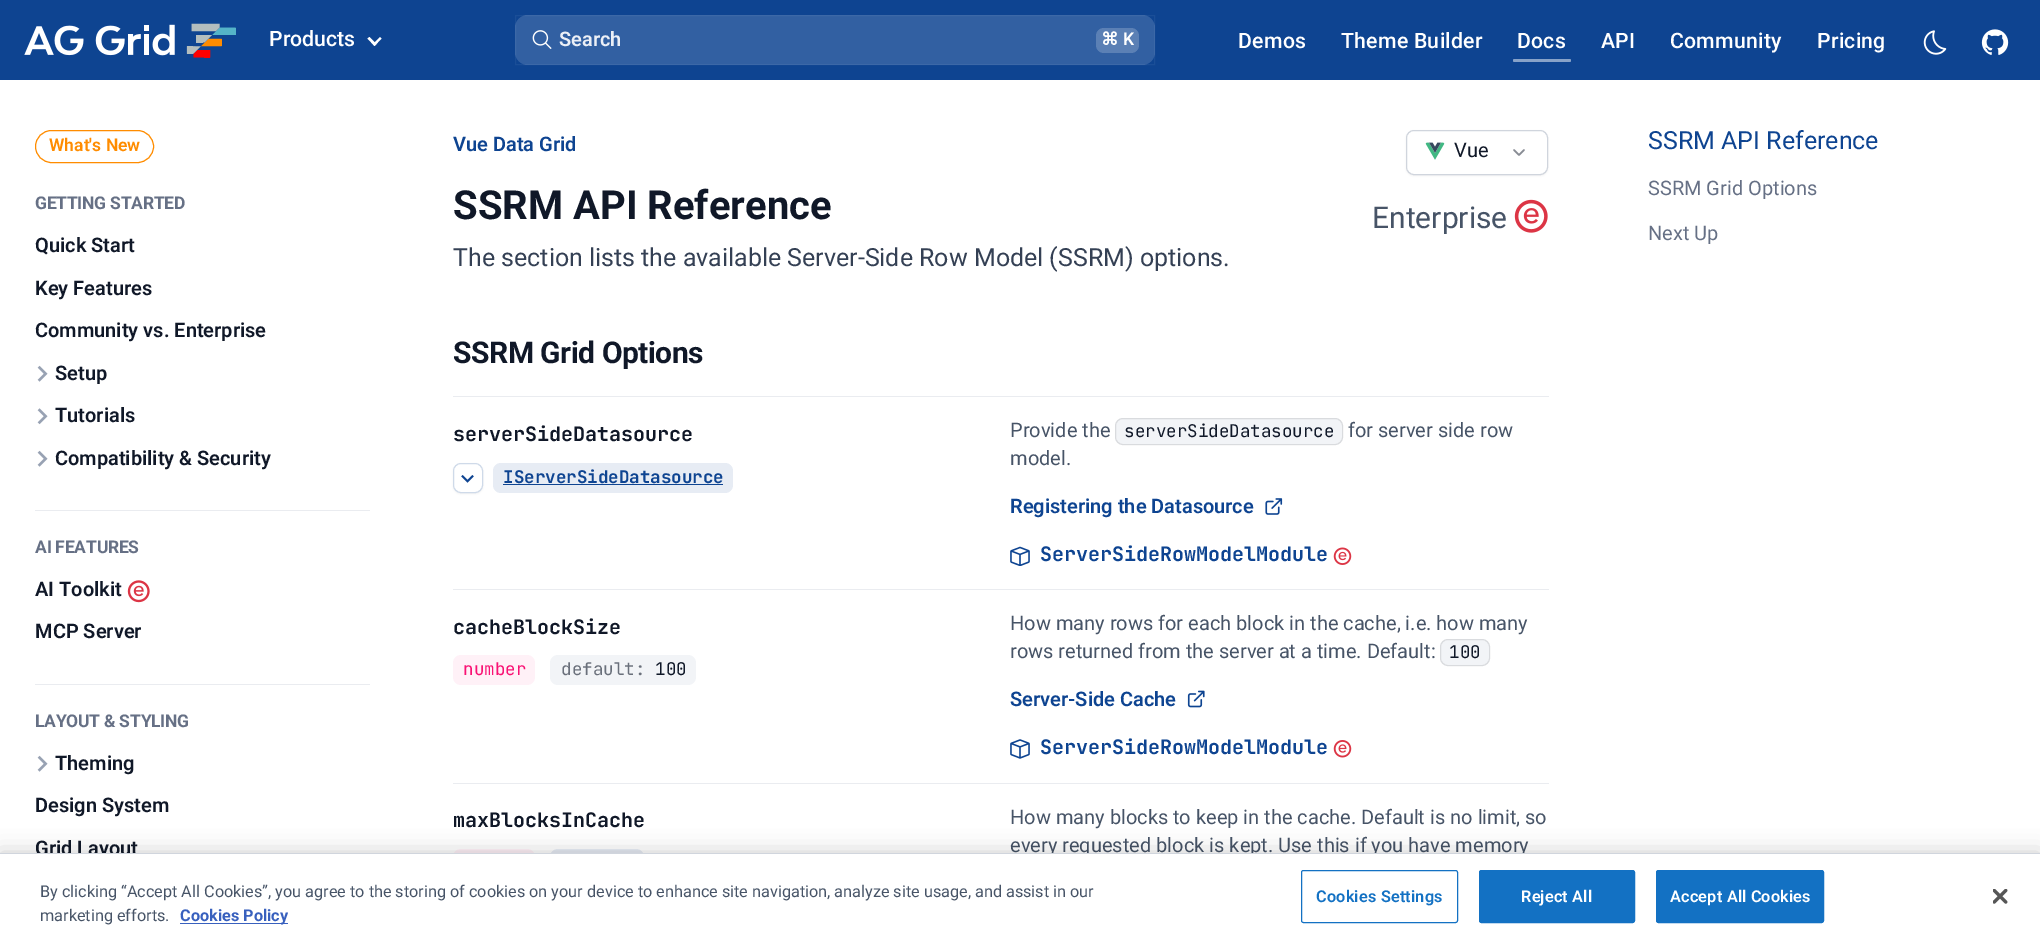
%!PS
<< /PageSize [2040 942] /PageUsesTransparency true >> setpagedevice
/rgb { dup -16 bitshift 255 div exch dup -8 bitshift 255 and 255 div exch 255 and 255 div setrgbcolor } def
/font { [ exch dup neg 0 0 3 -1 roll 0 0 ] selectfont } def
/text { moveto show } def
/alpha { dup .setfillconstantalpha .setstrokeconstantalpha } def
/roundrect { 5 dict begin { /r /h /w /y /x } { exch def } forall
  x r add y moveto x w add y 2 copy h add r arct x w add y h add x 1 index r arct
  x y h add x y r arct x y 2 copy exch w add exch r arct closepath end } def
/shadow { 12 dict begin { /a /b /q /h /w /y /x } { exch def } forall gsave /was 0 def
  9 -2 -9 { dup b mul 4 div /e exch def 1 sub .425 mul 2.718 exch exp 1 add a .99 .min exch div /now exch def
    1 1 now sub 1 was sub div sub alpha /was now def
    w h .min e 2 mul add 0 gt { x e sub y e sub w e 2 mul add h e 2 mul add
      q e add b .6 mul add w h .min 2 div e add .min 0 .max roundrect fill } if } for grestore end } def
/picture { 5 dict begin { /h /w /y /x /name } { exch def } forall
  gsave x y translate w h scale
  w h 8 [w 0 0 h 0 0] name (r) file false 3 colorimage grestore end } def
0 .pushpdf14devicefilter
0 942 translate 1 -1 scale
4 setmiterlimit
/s1 { /Roboto-Medium 21.25 font 16#FFFFFF rgb } def
/s2 { /Roboto-SemiBold 20 font 16#EBEFF6 rgb } def
/s3 { /DejaVuSans-Bold 17.5 font 16#FFFFFF rgb } def
/s4 { /Roboto-SemiBold 17.5 font 16#FFFFFF rgb } def
/s5 { /Roboto-SemiBold 17.5 font 16#FF8C00 rgb } def
/s6 { /Roboto-SemiBold 20 font 16#101828 rgb } def
/s7 { /Roboto-SemiBold 20 font 16#0E4491 rgb } def
/s8 { /Roboto-Bold 40 font 16#101828 rgb } def
/s9 { /Roboto-Regular 20 font 16#101828 rgb } def
/s10 { /Roboto-Regular 30 font 16#475467 rgb } def
/s11 { /Roboto-Regular 25 font 16#344054 rgb } def
/s12 { /JetBrainsMono-Bold 20 font 16#101828 rgb } def
/s13 { /JetBrainsMono-Bold 17.5 font 16#0E4491 rgb } def
/s14 { /Roboto-Regular 20 font 16#475467 rgb } def
/s15 { /JetBrainsMono-Regular 17.5 font 16#101828 rgb } def
/s16 { /JetBrainsMono-Bold 20 font 16#0E4491 rgb } def
/s17 { /JetBrainsMono-Regular 17.5 font 16#F91274 rgb } def
/s18 { /JetBrainsMono-Regular 17.5 font 16#6A707B rgb } def
/s19 { /Roboto-Regular 25 font 16#0E4491 rgb } def
/s20 { /Roboto-Regular 20 font 16#667085 rgb } def
/s21 { /Roboto-Regular 16.25 font 16#475467 rgb } def
/s22 { /Roboto-Bold 16.25 font 16#3860BE rgb } def
16#FFFFFF rgb
0 0 2040 942 rectfill
16#0E4491 rgb
0 0 2040 80 rectfill
(pic1.raw) 24 24 151 32 picture
(pic2.raw) 186 23 50 35 picture
s1
(Products) 269 46 text
380 37 moveto 381.5 38.5 lineto 374.5 46 lineto 373 44 lineto closepath fill
369.5 37 moveto 376.5 44 lineto 374.5 46 lineto 367.5 38.5 lineto closepath fill
16#3260A2 rgb
515 15 640 50 13 roundrect fill
0.05 alpha
16#FFFFFF rgb
515.5 15.5 639 49 rectstroke
1 alpha
(pic3.raw) 532 30 20 19 picture
s2
(Search) 559 46 text
16#5B80B5 rgb
1096 28 43 25 8 roundrect fill
s3
(⌘) 1101 45 text
s4
(K) 1123 45 text
/Roboto-Medium 21.25 font
1238 48 moveto 0.25 0 (Demos) ashow
1341 48 moveto 0.25 0 (Theme Builder) ashow
1517 48 moveto 0.25 0 (Docs) ashow
16#87A2C8 rgb
1513 59 58 3 1.5 roundrect fill
16#FFFFFF rgb
1601 48 moveto 0.25 0 (API) ashow
1670 48 moveto 0.25 0 (Community) ashow
1817 48 moveto 0.25 0 (Pricing) ashow
(pic4.raw) 1923 30 24 25 picture
(pic5.raw) 1981 29 28 26 picture
16#FF8C00 rgb
35.5 130.5 118 32 16 roundrect stroke
s5
(What's New) 49 151 text
/Roboto-Bold 17.5 font
16#667085 rgb
35 209 moveto -0.25 0 (GETTING STARTED) ashow
s6
(Quick Start) 35 252 text
(Key Features) 35 295 text
(Community vs. Enterprise) 35 337 text
(pic6.raw) 37 365 11 17 picture
(Setup) 55 380 text
(pic7.raw) 37 408 11 17 picture
(Tutorials) 55 422 text
(pic6.raw) 37 450 11 17 picture
(Compatibility & Security) 55 465 text
16#EAECF0 rgb
35 510 335 1 0.5 roundrect fill
/Roboto-Bold 17.5 font
16#667085 rgb
35 553 moveto -0.25 0 (AI FEATURES) ashow
s6
(AI Toolkit) 35 596 text
(pic8.raw) 127 580 23 23 picture
(MCP Server) 35 638 text
16#EAECF0 rgb
35 684 335 1 0.5 roundrect fill
/Roboto-Bold 17.5 font
16#667085 rgb
35 727 moveto -0.25 0 (LAYOUT & STYLING) ashow
(pic6.raw) 37 755 11 17 picture
s6
(Theming) 55 770 text
(Design System) 35 812 text
(Grid Layout) 35 855 text
s7
(Vue Data Grid) 453 151 text
s8
(SSRM API Reference) 453 219 text
16#0C111D rgb
1406 131 142 45 8 1 0.05 shadow
16#FFFFFF rgb
1406.5 130.5 141 44 7.5 roundrect gsave fill grestore
16#D0D5DD rgb
stroke
(pic9.raw) 1425 142 20 18 picture
s9
(Vue) 1454 157 text
16#888C94 rgb
1.7 setlinewidth
1 setlinecap
1 setlinejoin
1514 150 moveto 1519 155 lineto 1524 150 lineto stroke
s10
(Enterprise) 1372 228 text
(pic10.raw) 1514 199 34 34 picture
s11
(The section lists the available Server-Side Row Model \(SSRM\) options.) 453 266 text
/Roboto-Bold 30 font
16#101828 rgb
453 363 moveto -0.5 0 (SSRM Grid Options) ashow
16#EAECF0 rgb
453 396 1096 1 rectfill
s12
(serverSideDatasource) 453 441 text
16#0C111D rgb
453 464 30 30 8 1 0.05 shadow
16#FFFFFF rgb
453.5 463.5 29 29 7.5 roundrect gsave fill grestore
16#CFDAE9 rgb
1 setlinewidth
0 setlinecap
0 setlinejoin
stroke
(pic11.raw) 461 475 13 8 picture
16#E7ECF4 rgb
493 463 240 30 8 roundrect fill
s13
(IServerSideDatasource) 503 483 text
503 484 220 1 rectfill
s14
(Provide the) 1010 437 text
16#F2F4F7 rgb
1115 418 228 27 8 roundrect fill
0.1 alpha
16#000000 rgb
1115.5 418.5 227 26 7.5 roundrect stroke
1 alpha
s15
(serverSideDatasource) 1124 437 text
s14
(for server side row) 1348 437 text
(model.) 1010 465 text
s7
(Registering the Datasource) 1010 513 text
(pic12.raw) 1265 498 18 17 picture
(pic13.raw) 1010 546 20 20 picture
s16
(ServerSideRowModelModule) 1040 561 text
(pic14.raw) 1333 547 19 18 picture
16#EAECF0 rgb
453 589 1096 1 rectfill
s12
(cacheBlockSize) 453 634 text
16#FFF1F7 rgb
453 655 82 30 8 roundrect fill
s17
(number) 463 675 text
16#F2F4F7 rgb
550 655 146 30 8 roundrect fill
s18
(default:) 561 675 text
s15
(100) 655 675 text
s14
(How many rows for each block in the cache, i.e. how many) 1010 630 text
(rows returned from the server at a time. Default:) 1010 658 text
16#F2F4F7 rgb
1440 639 50 27 8 roundrect fill
0.1 alpha
16#000000 rgb
1440.5 639.5 49 26 7.5 roundrect stroke
1 alpha
s15
(100) 1449 658 text
s7
(Server-Side Cache) 1010 706 text
(pic15.raw) 1187 690 18 18 picture
(pic16.raw) 1010 739 20 20 picture
s16
(ServerSideRowModelModule) 1040 754 text
(pic17.raw) 1333 740 19 18 picture
16#EAECF0 rgb
453 783 1096 1 rectfill
s12
(maxBlocksInCache) 453 827 text
16#FFF1F7 rgb
453 849 82 30 8 roundrect fill
16#E7ECF4 rgb
550 849 94 30 8 roundrect fill
s14
(How many blocks to keep in the cache. Default is no limit, so) 1010 824 text
(every requested block is kept. Use this if you have memory) 1010 852 text
s19
(SSRM API Reference) 1648 149 text
s20
(SSRM Grid Options) 1648 195 text
(Next Up) 1648 240 text
16#000000 rgb
0 853 2040 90 0 11 0.2 shadow
16#FFFFFF rgb
0 854 2040 88 rectfill
16#D0D5DD rgb
0 853 2040 1 rectfill
s21
(By clicking “Accept All Cookies”, you agree to the storing of cookies on your device to enhance site navigation, analyze site usage, and assist in our) 40 897 text
(marketing efforts.) 40 921 text
16#3860BE rgb
180 923 108 1 rectfill
s22
(Cookies Policy) 180 921 text
16#1371C3 rgb
1301.5 870.5 156 52 2 roundrect stroke
/Roboto-SemiBold 16.25 font
1316 902 moveto 0.2 0 (Cookies Settings) ashow
1479.5 870.5 155 52 2 roundrect gsave fill grestore
stroke
16#FFFFFF rgb
1521 902 moveto 0.2 0 (Reject All) ashow
16#1371C3 rgb
1656.5 870.5 167 52 2 roundrect gsave fill grestore
stroke
16#FFFFFF rgb
1670 902 moveto 0.2 0 (Accept All Cookies) ashow
(pic18.raw) 1993 889 15 15 picture
.poppdf14devicefilter showpage
